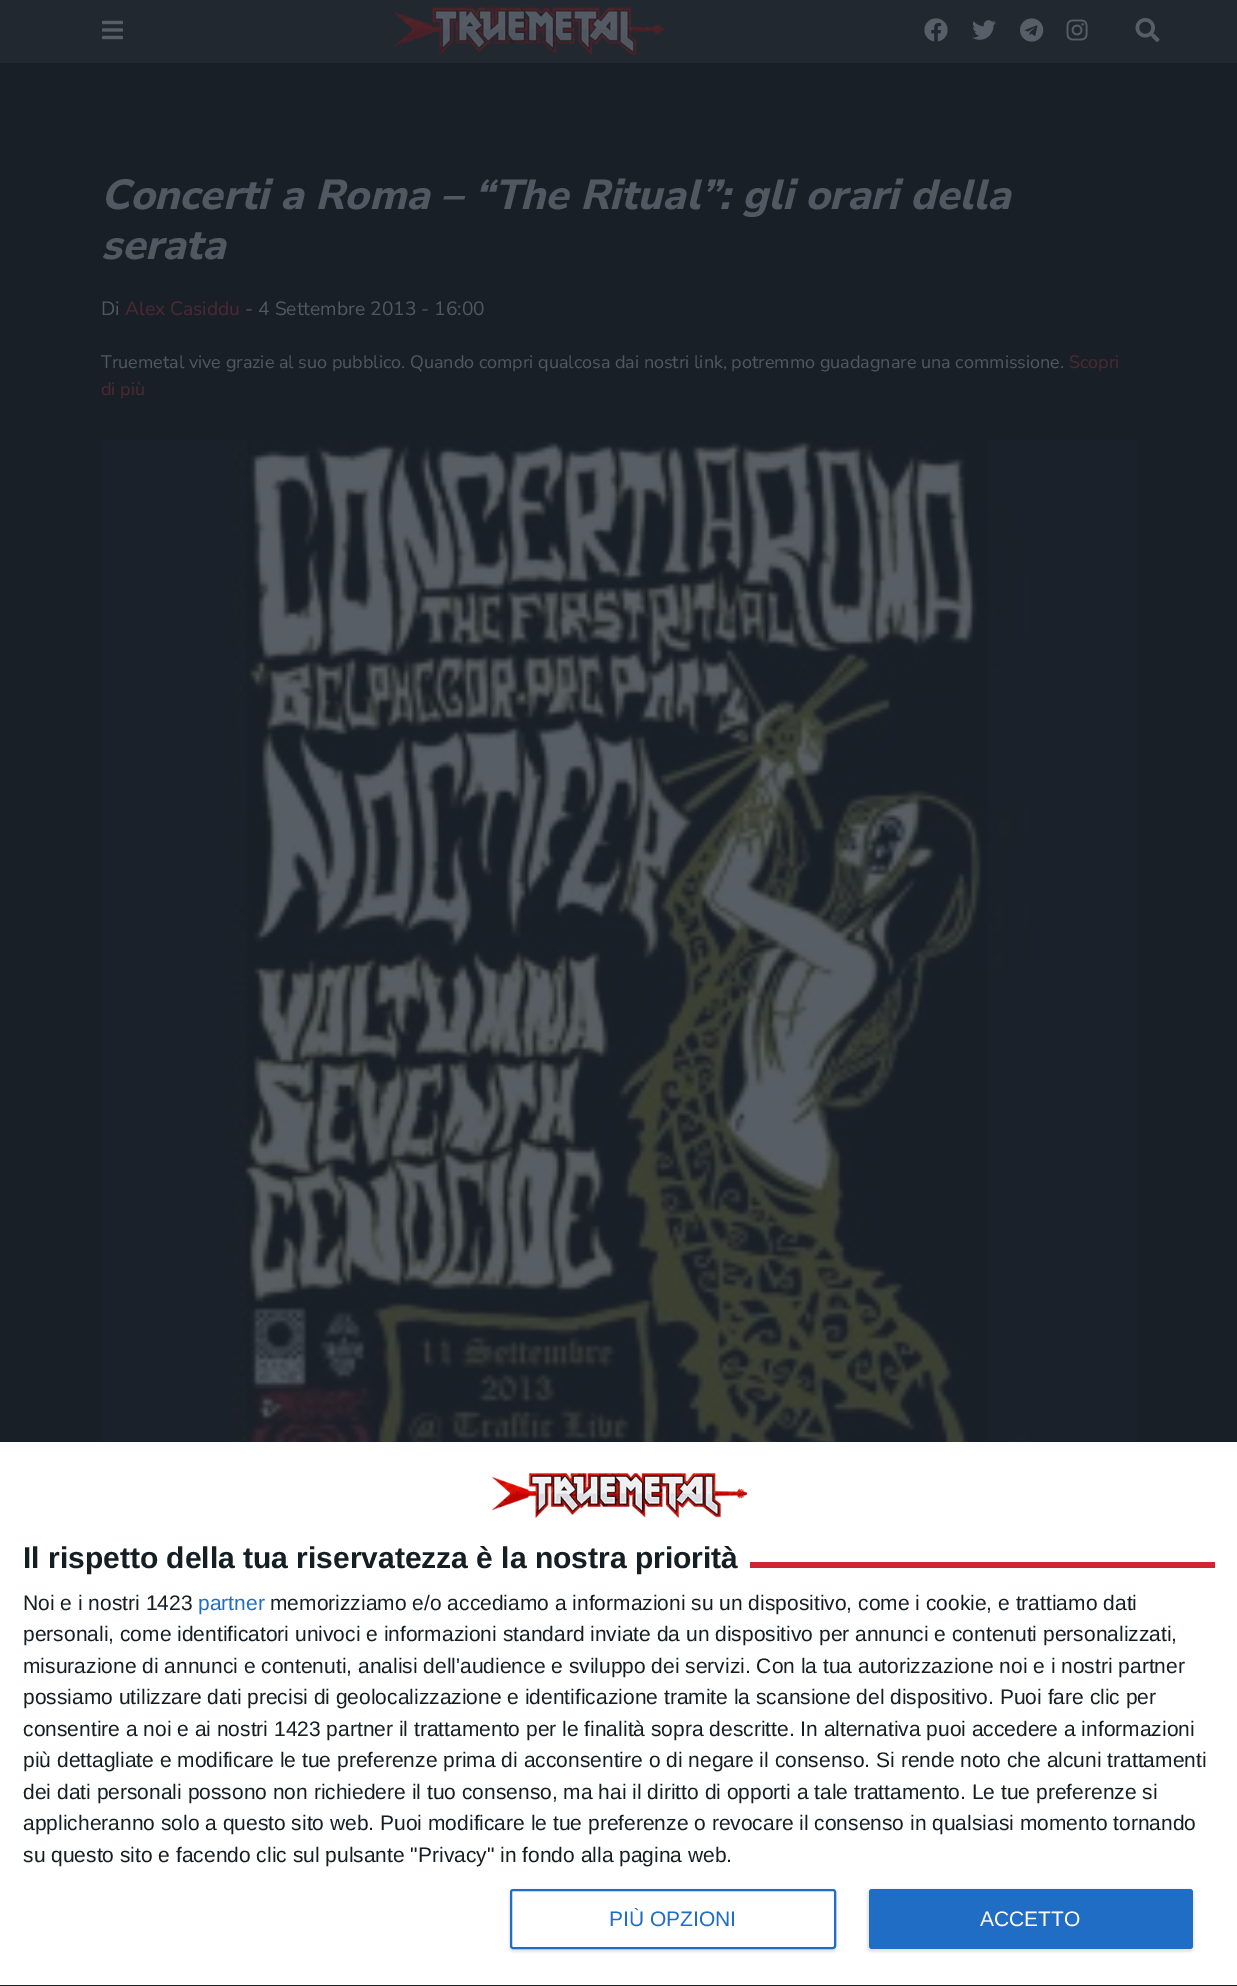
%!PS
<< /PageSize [1237 1986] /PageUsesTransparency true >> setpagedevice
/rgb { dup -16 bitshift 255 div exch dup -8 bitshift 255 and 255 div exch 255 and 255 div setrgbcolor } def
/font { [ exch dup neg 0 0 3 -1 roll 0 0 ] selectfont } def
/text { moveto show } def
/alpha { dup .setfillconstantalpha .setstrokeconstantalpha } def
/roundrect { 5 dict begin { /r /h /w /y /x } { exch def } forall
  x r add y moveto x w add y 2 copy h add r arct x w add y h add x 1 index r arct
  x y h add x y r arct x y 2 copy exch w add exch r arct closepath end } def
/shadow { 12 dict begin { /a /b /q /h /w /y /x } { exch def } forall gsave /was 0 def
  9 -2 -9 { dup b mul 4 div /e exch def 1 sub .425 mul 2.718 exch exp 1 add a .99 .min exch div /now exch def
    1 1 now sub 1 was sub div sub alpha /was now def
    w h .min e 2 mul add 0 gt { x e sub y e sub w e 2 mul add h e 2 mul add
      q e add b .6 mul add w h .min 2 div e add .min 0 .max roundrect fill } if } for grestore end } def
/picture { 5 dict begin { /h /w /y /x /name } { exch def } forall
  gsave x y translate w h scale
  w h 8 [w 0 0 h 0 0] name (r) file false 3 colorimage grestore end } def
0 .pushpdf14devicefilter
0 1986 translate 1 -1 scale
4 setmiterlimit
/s1 { /NunitoSans-ExtraBoldItalic 42 font 16#525861 rgb } def
/s2 { /NunitoSans-Regular 19.25 font 16#525861 rgb } def
/s3 { /NunitoSans-Regular 19.25 font 16#4E2833 rgb } def
/s4 { /NunitoSans-Regular 18 font 16#525861 rgb } def
/s5 { /NunitoSans-Regular 18 font 16#4E2833 rgb } def
/s6 { /LiberationSans-Bold 30 font 16#141E23 rgb } def
/s7 { /LiberationSans-Regular 21 font 16#141E23 rgb } def
/s8 { /LiberationSans-Regular 21 font 16#206DC5 rgb } def
/s9 { /LiberationSans-Regular 21 font 16#FFFFFF rgb } def
16#191F27 rgb
0 0 1237 1986 rectfill
16#222830 rgb
0 0 1237 63 rectfill
(pic1.raw) 102 20 21 20 picture
(pic2.raw) 393 7 272 49 picture
(pic3.raw) 924 18 24 24 picture
(pic4.raw) 972 20 24 20 picture
(pic5.raw) 1020 18 24 24 picture
(pic6.raw) 1066 19 22 22 picture
(pic7.raw) 1135 18 25 24 picture
s1
(Concerti a Roma – “The Ritual”: gli orari della) 101 209 text
(serata) 101 259 text
s2
(Di) 101 315 text
s3
(Alex Casiddu) 125 315 text
s2
(- 4 Settembre 2013 - 16:00) 245 315 text
s4
(Truemetal vive grazie al suo pubblico. Quando compri qualcosa dai nostri link, potremmo guadagnare una commissione.) 101 368 text
s5
(Scopri) 1069 368 text
(di più) 101 395 text
(pic8.raw) 102 439 1035 1003 picture
16#FFFFFF rgb
0 1442 1237 543 rectfill
(pic9.raw) 492 1473 255 45 picture
s6
(Il rispetto della tua riservatezza è la nostra priorità) 23 1568 text
16#D32531 rgb
750 1562 465 6 rectfill
s7
(Noi e i nostri 1423) 23 1610 text
s8
(partner) 198 1610 text
s7
(memorizziamo e/o accediamo a informazioni su un dispositivo, come i cookie, e trattiamo dati) 270 1610 text
(personali, come identificatori univoci e informazioni standard inviate da un dispositivo per annunci e contenuti personalizzati,) 23 1641 text
(misurazione di annunci e contenuti, analisi dell'audience e sviluppo dei servizi. Con la tua autorizzazione noi e i nostri partner) 23 1673 text
(possiamo utilizzare dati precisi di geolocalizzazione e identificazione tramite la scansione del dispositivo. Puoi fare clic per) 23 1704 text
(consentire a noi e ai nostri 1423 partner il trattamento per le finalità sopra descritte. In alternativa puoi accedere a informazioni) 23 1736 text
(più dettagliate e modificare le tue preferenze prima di acconsentire o di negare il consenso. Si rende noto che alcuni trattamenti) 23 1767 text
(dei dati personali possono non richiedere il tuo consenso, ma hai il diritto di opporti a tale trattamento. Le tue preferenze si) 23 1799 text
(applicheranno solo a questo sito web. Puoi modificare le tue preferenze o revocare il consenso in qualsiasi momento tornando) 23 1830 text
(su questo sito e facendo clic sul pulsante "Privacy" in fondo alla pagina web.) 23 1862 text
16#000000 rgb
509 1889 328 63 5 1 0.1 shadow
16#FFFFFF rgb
511 1890 324 58 2 roundrect gsave fill grestore
16#206DC5 rgb
2 setlinewidth
stroke
gsave
609 1908 128 21 rectclip
(PIÙ OPZIONI) 609 1926 text
grestore
16#000000 rgb
867 1889 327 63 5 1 0.1 shadow
16#206DC5 rgb
869 1889 324 60 3 roundrect fill
s9
(ACCETTO) 980 1926 text
.poppdf14devicefilter showpage
